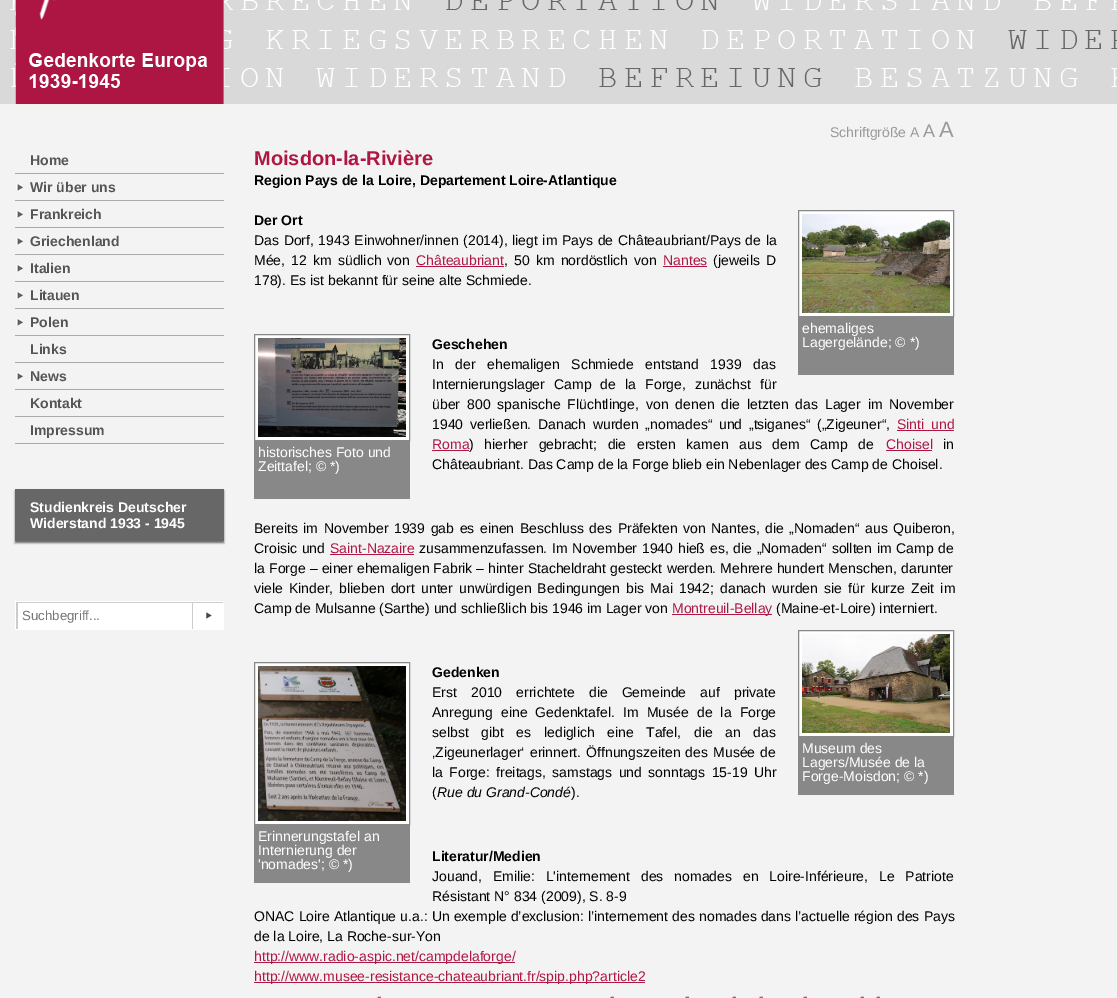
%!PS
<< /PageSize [1117 998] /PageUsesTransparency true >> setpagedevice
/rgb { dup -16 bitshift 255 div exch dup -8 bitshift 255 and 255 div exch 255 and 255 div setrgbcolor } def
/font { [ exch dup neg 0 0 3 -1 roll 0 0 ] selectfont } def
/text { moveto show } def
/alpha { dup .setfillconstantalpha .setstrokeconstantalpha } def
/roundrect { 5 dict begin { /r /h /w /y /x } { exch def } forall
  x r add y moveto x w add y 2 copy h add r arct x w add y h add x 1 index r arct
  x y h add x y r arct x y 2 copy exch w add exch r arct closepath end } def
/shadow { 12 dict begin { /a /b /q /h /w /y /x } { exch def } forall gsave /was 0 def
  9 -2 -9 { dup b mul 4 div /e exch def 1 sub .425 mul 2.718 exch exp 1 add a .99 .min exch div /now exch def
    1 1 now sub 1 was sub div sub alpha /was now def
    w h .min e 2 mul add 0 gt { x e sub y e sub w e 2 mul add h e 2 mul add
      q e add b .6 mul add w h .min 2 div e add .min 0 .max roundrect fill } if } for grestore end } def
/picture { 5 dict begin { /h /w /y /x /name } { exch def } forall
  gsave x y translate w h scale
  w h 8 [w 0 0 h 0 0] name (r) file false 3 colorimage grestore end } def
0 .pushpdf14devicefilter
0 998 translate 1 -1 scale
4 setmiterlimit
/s1 { /LiberationSans-Bold 14 font 16#555555 rgb } def
/s2 { /LiberationSans-Bold 14 font 16#FFFFFF rgb } def
/s3 { /LiberationSans-Regular 13.25 font 16#757575 rgb } def
/s4 { /LiberationSans-Regular 14 font 16#999999 rgb } def
/s5 { /LiberationSans-Regular 18 font 16#999999 rgb } def
/s6 { /LiberationSans-Regular 22 font 16#999999 rgb } def
/s7 { /LiberationSans-Bold 20 font 16#AE1744 rgb } def
/s8 { /LiberationSans-Bold 14 font 16#000000 rgb } def
/s9 { /LiberationSans-Regular 14 font 16#FFFFFF rgb } def
/s10 { /LiberationSans-Regular 14 font 16#AE1744 rgb } def
/s11 { /LiberationSans-Regular 14 font 16#000000 rgb } def
/s12 { /LiberationSans-Italic 14 font 16#000000 rgb } def
16#F3F3F3 rgb
0 0 1117 998 rectfill
(pic1.raw) 0 0 1117 104 picture
(pic2.raw) 15 0 209 104 picture
16#AAAAAA rgb
15 173 209 1 rectfill
s1
(Home) 30 165 text
(pic3.raw) 16 183 7 9 picture
16#AAAAAA rgb
15 200 209 1 rectfill
s1
(Wir über uns) 30 192 text
(pic3.raw) 16 210 7 9 picture
16#AAAAAA rgb
15 227 209 1 rectfill
s1
(Frankreich) 30 219 text
(pic3.raw) 16 237 7 9 picture
16#AAAAAA rgb
15 254 209 1 rectfill
s1
(Griechenland) 30 246 text
(pic3.raw) 16 264 7 9 picture
16#AAAAAA rgb
15 281 209 1 rectfill
s1
(Italien) 30 273 text
(pic3.raw) 16 291 7 9 picture
16#AAAAAA rgb
15 308 209 1 rectfill
s1
(Litauen) 30 300 text
(pic3.raw) 16 318 7 9 picture
16#AAAAAA rgb
15 335 209 1 rectfill
s1
(Polen) 30 327 text
16#AAAAAA rgb
15 362 209 1 rectfill
s1
(Links) 30 354 text
(pic3.raw) 16 372 7 9 picture
16#AAAAAA rgb
15 389 209 1 rectfill
s1
(News) 30 381 text
16#AAAAAA rgb
15 416 209 1 rectfill
s1
(Kontakt) 30 408 text
16#AAAAAA rgb
15 443 209 1 rectfill
s1
(Impressum) 30 435 text
16#666666 rgb
15 491 209 52 0 1 1 shadow
16#676767 rgb
15 489 209 52 rectfill
s2
(Studienkreis Deutscher) 30 512 text
(Widerstand 1933 - 1945) 30 528 text
15 601 209 29 rectfill
gsave
16 602 176 27 rectclip
16#CCCCCC rgb
-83 503 moveto 291 503 lineto 291 728 lineto -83 728 lineto closepath 18 603 moveto 194 603 lineto 194 630 lineto 18 630 lineto closepath eofill
grestore
s3
(Suchbegriff...) 22 620 text
(pic4.raw) 206 612 6 7 picture
gsave
192 602 31 27 rectclip
16#CCCCCC rgb
93 503 moveto 322 503 lineto 322 728 lineto 93 728 lineto closepath 193 603 moveto 224 603 lineto 224 630 lineto 193 630 lineto closepath eofill
grestore
s4
(Schriftgröße A) 830 137 text
s5
(A) 923 137 text
s6
(A) 939 137 text
s7
(Moisdon-la-Rivière) 254 165 text
s8
(Region Pays de la Loire, Departement Loire-Atlantique) 254 185 text
(Der Ort) 254 225 text
16#FFFFFF rgb
798.5 210.5 moveto 953.5 210.5 lineto 953.5 316.5 lineto 798.5 316.5 lineto closepath gsave fill grestore
16#888888 rgb
stroke
(pic5.raw) 802 214 148 99 picture
798 317 156 58 rectfill
s9
(ehemaliges) 802 333 text
(Lagergelände; © *\)) 802 347 text
16#000000 rgb
254 245 moveto 0.75 0 32 (Das Dorf, 1943 Einwohner/innen \(2014\), liegt im Pays de Châteaubriant/Pays de la) widthshow
254 265 moveto 2.25 0 32 (Mée, 12 km südlich von) widthshow
s10
(Châteaubriant) 416 265 text
416 266 88 1 rectfill
16#000000 rgb
504 265 moveto 2.25 0 32 (, 50 km nordöstlich von) widthshow
s10
(Nantes) 663 265 text
663 266 44 1 rectfill
16#000000 rgb
713 265 moveto 2.25 0 32 (\(jeweils D) widthshow
(178\). Es ist bekannt für seine alte Schmiede.) 254 285 text
s8
(Geschehen) 432 349 text
16#FFFFFF rgb
254.5 334.5 moveto 409.5 334.5 lineto 409.5 440.5 lineto 254.5 440.5 lineto closepath gsave fill grestore
16#888888 rgb
stroke
(pic6.raw) 258 338 148 99 picture
254 441 156 58 rectfill
s9
(historisches Foto und) 258 457 text
(Zeittafel; © *\)) 258 471 text
16#000000 rgb
432 369 moveto 7.75 0 32 (In der ehemaligen Schmiede entstand 1939 das) widthshow
432 389 moveto 5.25 0 32 (Internierungslager Camp de la Forge, zunächst für) widthshow
432 409 moveto 3.1 0 32 (über 800 spanische Flüchtlinge, von denen die letzten das Lager im November) widthshow
432 429 moveto 2.75 0 32 (1940 verließen. Danach wurden „nomades“ und „tsiganes“ \(„Zigeuner“,) widthshow
16#AE1744 rgb
897 429 moveto 3 0 32 (Sinti und) widthshow
897 430 57 1 rectfill
(Roma) 432 449 text
432 450 37 1 rectfill
16#000000 rgb
469 449 moveto 6.75 0 32 (\) hierher gebracht; die ersten kamen aus dem Camp de) widthshow
s10
(Choisel) 886 449 text
886 450 46 1 rectfill
s11
(in) 943 449 text
(Châteaubriant. Das Camp de la Forge blieb ein Nebenlager des Camp de Choisel.) 432 469 text
254 533 moveto 1.75 0 32 (Bereits im November 1939 gab es einen Beschluss des Präfekten von Nantes, die „Nomaden“ aus Quiberon,) widthshow
254 553 moveto 0.9 0 32 (Croisic und) widthshow
s10
(Saint-Nazaire) 330 553 text
330 554 84 1 rectfill
16#000000 rgb
419 553 moveto 0.9 0 32 (zusammenzufassen. Im November 1940 hieß es, die „Nomaden“ sollten im Camp de) widthshow
254 573 moveto 0.25 0 32 (la Forge – einer ehemaligen Fabrik – hinter Stacheldraht gesteckt werden. Mehrere hundert Menschen, darunter) widthshow
254 593 moveto 2.25 0 32 (viele Kinder, blieben dort unter unwürdigen Bedingungen bis Mai 1942; danach wurden sie für kurze Zeit im) widthshow
(Camp de Mulsanne \(Sarthe\) und schließlich bis 1946 im Lager von) 254 613 text
16#AE1744 rgb
672 614 100 1 rectfill
(Montreuil-Bellay) 672 613 text
s11
(\(Maine-et-Loire\) interniert.) 776 613 text
s8
(Gedenken) 432 677 text
16#FFFFFF rgb
254.5 662.5 moveto 409.5 662.5 lineto 409.5 824.5 lineto 254.5 824.5 lineto closepath gsave fill grestore
16#888888 rgb
stroke
(pic7.raw) 258 666 148 155 picture
254 825 156 58 rectfill
s9
(Erinnerungstafel an) 258 841 text
(Internierung der) 258 855 text
('nomades'; © *\)) 258 869 text
16#000000 rgb
432 697 moveto 10.25 0 32 (Erst 2010 errichtete die Gemeinde auf private) widthshow
432 717 moveto 4.25 0 32 (Anregung eine Gedenktafel. Im Musée de la Forge) widthshow
432 737 moveto 8.75 0 32 (selbst gibt es lediglich eine Tafel, die an das) widthshow
432 757 moveto 1.25 0 32 (‚Zigeunerlager‘ erinnert. Öffnungszeiten des Musée de) widthshow
432 777 moveto 2.5 0 32 (la Forge: freitags, samstags und sonntags 15-19 Uhr) widthshow
(\() 432 797 text
s12
(Rue du Grand-Condé) 437 797 text
s11
(\).) 571 797 text
16#FFFFFF rgb
798.5 630.5 moveto 953.5 630.5 lineto 953.5 736.5 lineto 798.5 736.5 lineto closepath gsave fill grestore
16#888888 rgb
stroke
(pic8.raw) 802 634 148 99 picture
798 737 156 58 rectfill
s9
(Museum des) 802 753 text
(Lagers/Musée de la) 802 767 text
(Forge-Moisdon; © *\)) 802 781 text
s8
(Literatur/Medien) 432 861 text
/LiberationSans-Regular 14 font
432 881 moveto 7 0 32 (Jouand, Emilie: L'internement des nomades en Loire-Inférieure, Le Patriote) widthshow
(Résistant N° 834 \(2009\), S. 8-9) 432 901 text
254 921 moveto 0.25 0 32 (ONAC Loire Atlantique u.a.: Un exemple d’exclusion: l’internement des nomades dans l’actuelle région des Pays) widthshow
(de la Loire, La Roche-sur-Yon) 254 941 text
16#AE1744 rgb
254 962 261 1 rectfill
(http://www.radio-aspic.net/campdelaforge/) 254 961 text
254 982 391 1 rectfill
(http://www.musee-resistance-chateaubriant.fr/spip.php?article2) 254 981 text
(-) 377 1001 text
(-) 610 1001 text
(-) 685 1001 text
(-) 732 1001 text
(-) 759 1001 text
(-) 803 1001 text
(-) 860 1001 text
(-) 876 1001 text
.poppdf14devicefilter showpage
